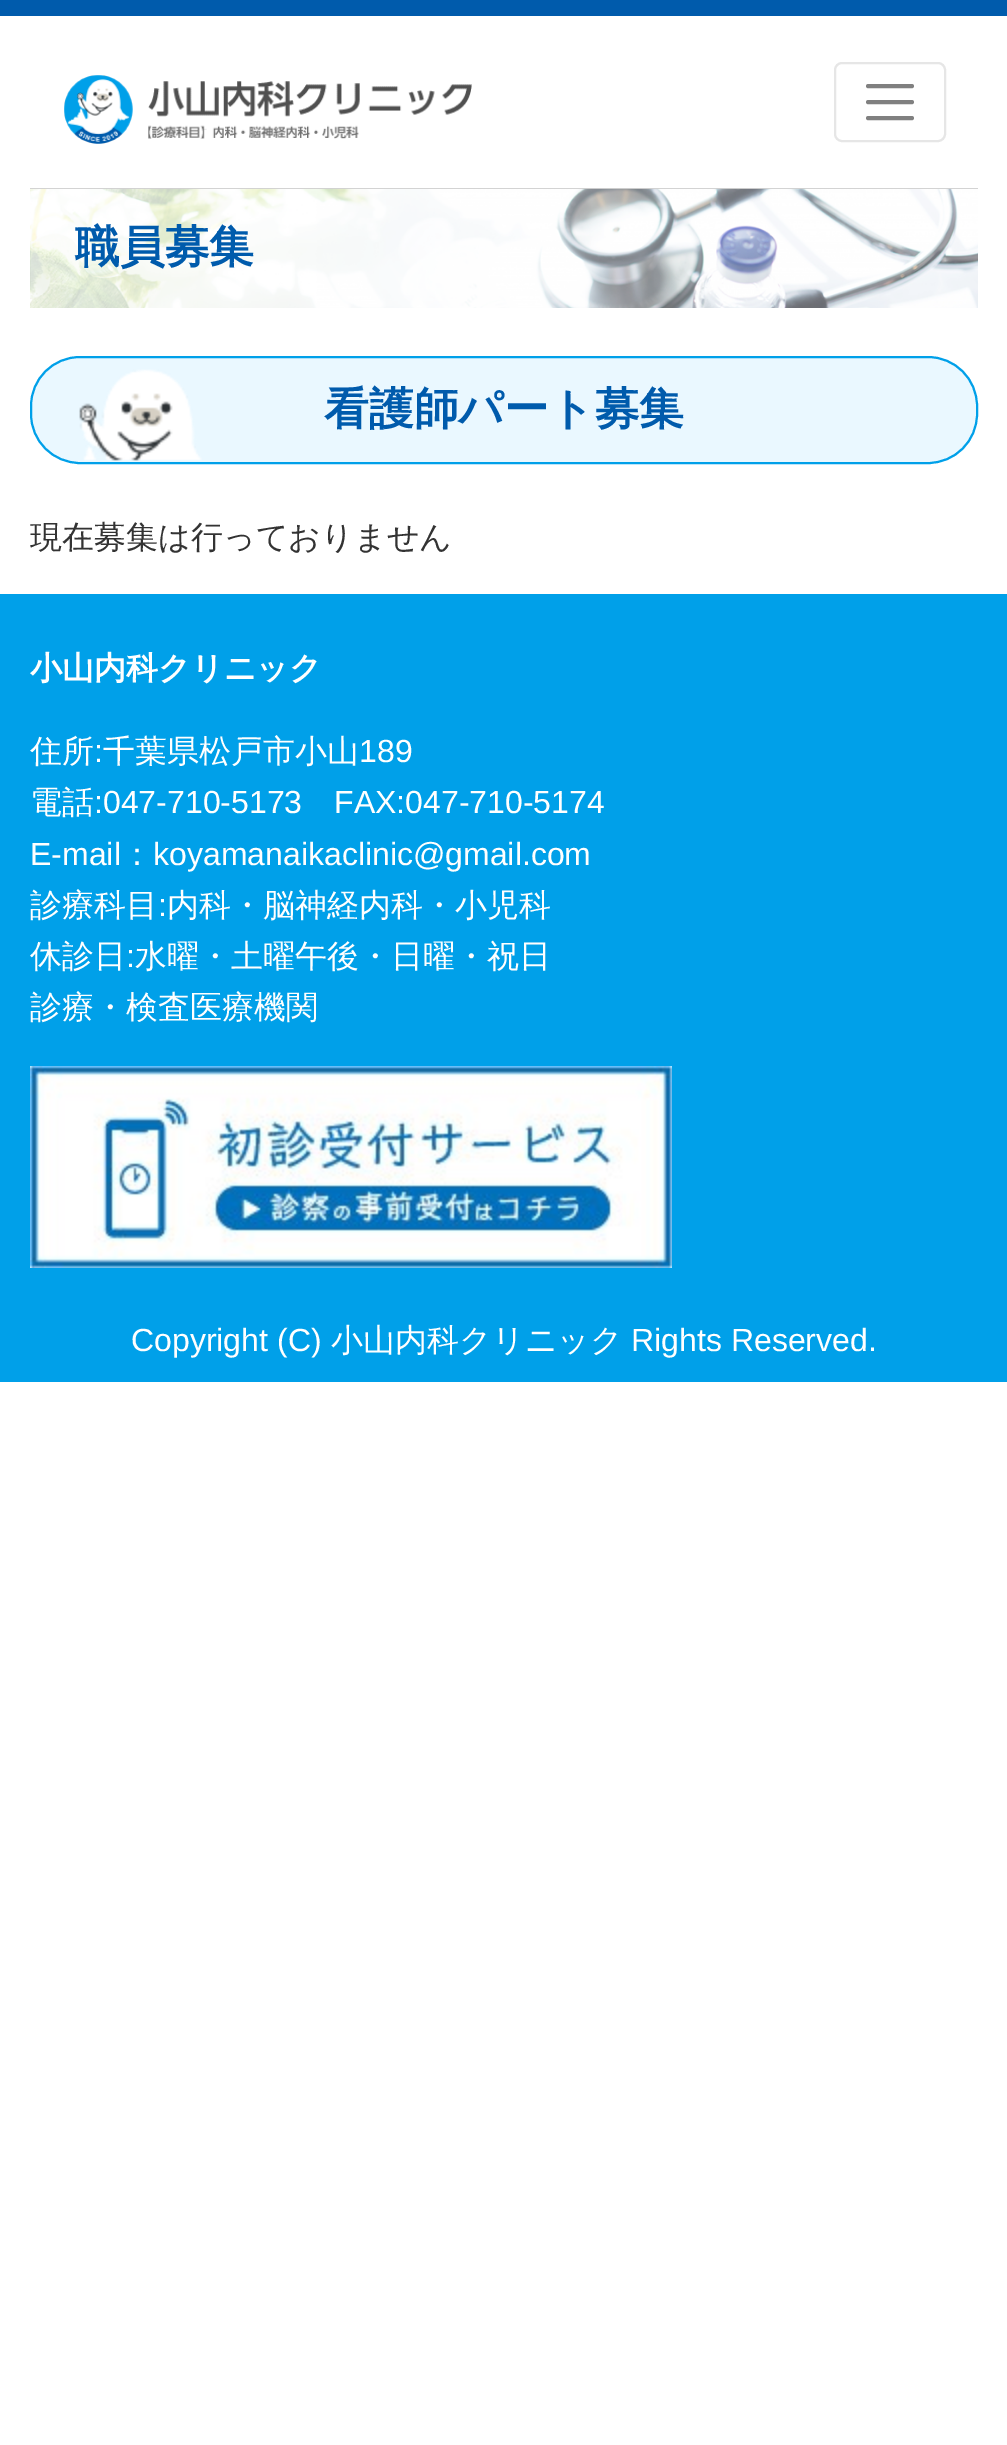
%!PS
<< /PageSize [1007 2445] >> setpagedevice
/rgb { dup -16 bitshift 255 div exch dup -8 bitshift 255 and 255 div exch 255 and 255 div setrgbcolor } def
/font { [ exch dup neg 0 0 3 -1 roll 0 0 ] selectfont } def
/text { moveto show } def
/roundrect { 5 dict begin { /r /h /w /y /x } { exch def } forall
  x r add y moveto x w add y 2 copy h add r arct x w add y h add x 1 index r arct
  x y h add x y r arct x y 2 copy exch w add exch r arct closepath end } def
/picture { 5 dict begin { /h /w /y /x /name } { exch def } forall
  gsave x y translate w h scale
  w h 8 [w 0 0 h 0 0] name (r) file false 3 colorimage grestore end } def
0 2445 translate 1 -1 scale
4 setmiterlimit
/s1 { /WenQuanYiZenHei-Bold 44.75 font 16#005BAC rgb } def
/s2 { /WenQuanYiZenHei-Medium 32 font 16#333333 rgb } def
/s3 { /WenQuanYiZenHei-Bold 32 font 16#FFFFFF rgb } def
/s4 { /WenQuanYiZenHei-Medium 32 font 16#FFFFFF rgb } def
/s5 { /LiberationSans-Regular 32 font 16#FFFFFF rgb } def
16#FFFFFF rgb
0 0 1007 2445 rectfill
16#005BAC rgb
0 0 1007 16 rectfill
(pic1.raw) 64 75 408 69 picture
16#E6E6E6 rgb
2 setlinewidth
835 63 110 78 7 roundrect stroke
16#808080 rgb
4 setlinewidth
1 setlinecap
868 86 moveto 912 86 lineto 868 102 moveto 912 102 lineto 868 118 moveto 912 118 lineto stroke
(pic2.raw) 30 188 948 120 picture
s1
(職員募集) 75 262 text
16#EAF8FF rgb
31 357 946 106 49 roundrect gsave fill grestore
16#00A0E9 rgb
2 setlinewidth
0 setlinecap
stroke
(pic3.raw) 79 369 123 92 picture
s1
(看護師パート募集) 324 424 text
s2
(現在募集は行っておりません) 30 548 text
16#00A0E9 rgb
0 594 1007 788 rectfill
s3
(小山内科クリニック) 30 679 text
s4
(住所) 30 762 text
s5
(:) 94 762 text
s4
(千葉県松戸市小山) 103 762 text
s5
(189) 359 762 text
s4
(電話) 30 813 text
s5
(:047-710-5173) 94 813 text
(FAX:047-710-5174) 334 813 text
(E-mail) 30 865 text
s4
(：) 121 865 text
s5
(koyamanaikaclinic@gmail.com) 153 865 text
s4
(診療科目) 30 916 text
s5
(:) 158 916 text
s4
(内科・脳神経内科・小児科) 167 916 text
(休診日) 30 967 text
s5
(:) 126 967 text
s4
(水曜・土曜午後・日曜・祝日) 135 967 text
(診療・検査医療機関) 30 1018 text
(pic4.raw) 30 1066 642 202 picture
s5
(Copyright \(C\)) 131 1351 text
s4
(小山内科クリニック) 331 1351 text
s5
(Rights Reserved.) 631 1351 text
showpage
